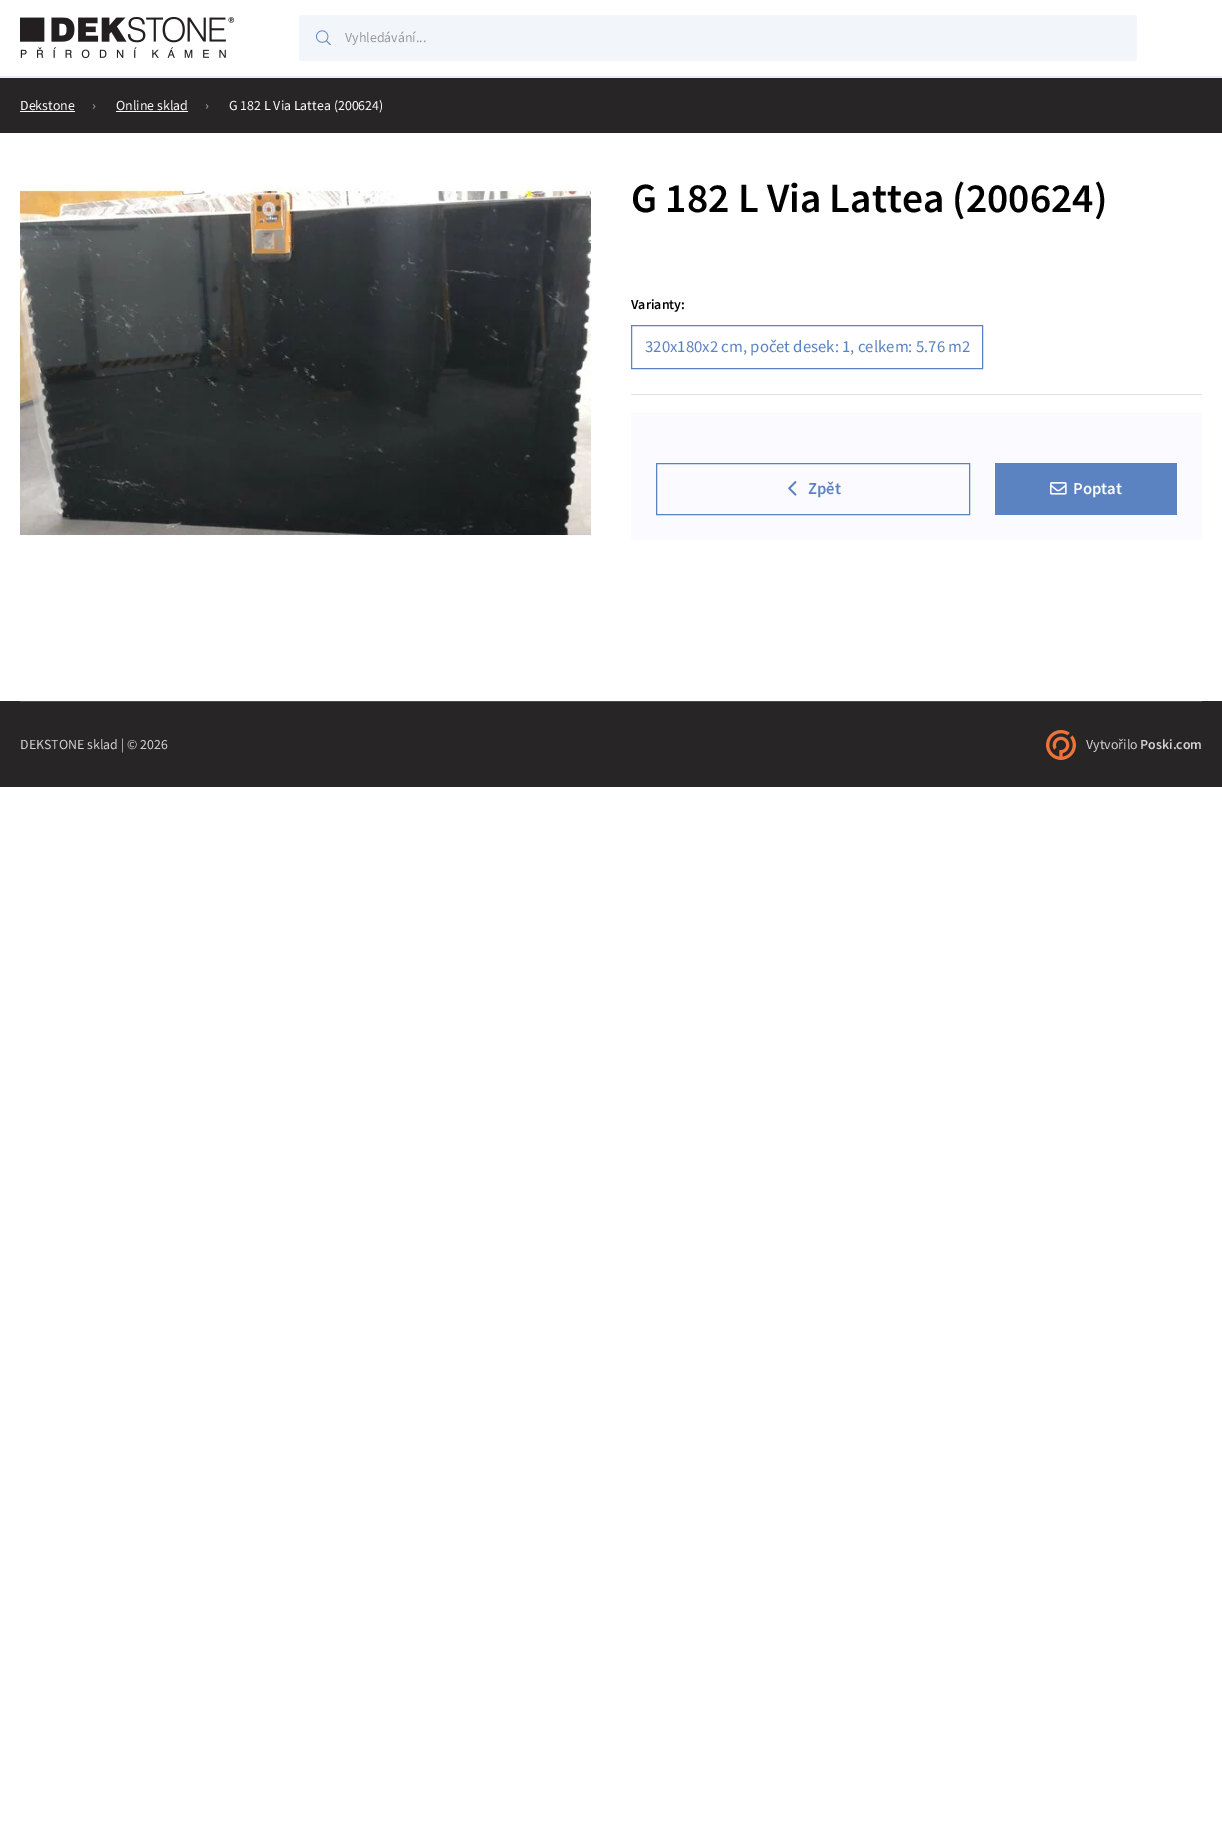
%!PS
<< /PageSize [1222 1847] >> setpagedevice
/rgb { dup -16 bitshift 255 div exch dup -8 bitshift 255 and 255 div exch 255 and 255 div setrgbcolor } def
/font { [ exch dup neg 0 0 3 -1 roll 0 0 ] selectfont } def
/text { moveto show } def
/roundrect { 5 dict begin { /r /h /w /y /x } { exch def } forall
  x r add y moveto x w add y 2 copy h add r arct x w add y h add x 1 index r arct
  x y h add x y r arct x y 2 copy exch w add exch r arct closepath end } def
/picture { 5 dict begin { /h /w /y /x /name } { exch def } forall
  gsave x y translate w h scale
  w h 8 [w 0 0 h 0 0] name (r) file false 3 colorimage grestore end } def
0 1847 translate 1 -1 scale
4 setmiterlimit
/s1 { /SourceSansPro-Regular 13.9 font 16#999999 rgb } def
/s2 { /SourceSansPro-Regular 13.9 font 16#FFFFFF rgb } def
/s3 { /SourceSansPro-Regular 13.9 font 16#AAAAAA rgb } def
/s4 { /SourceSansPro-SemiBold 41.5 font 16#000000 rgb } def
/s5 { /SourceSansPro-SemiBold 13.9 font 16#000000 rgb } def
/s6 { /SourceSansPro-Regular 16.7 font 16#5C83C1 rgb } def
/s7 { /SourceSansPro-SemiBold 16.7 font 16#5C83C1 rgb } def
/s8 { /SourceSansPro-SemiBold 16.7 font 16#FFFFFF rgb } def
/s9 { /SourceSansPro-Regular 13.9 font 16#D4D3D3 rgb } def
/s10 { /SourceSansPro-SemiBold 13.9 font 16#D4D3D3 rgb } def
16#FFFFFF rgb
0 0 1222 1847 rectfill
(pic1.raw) 20 17 214 41 picture
16#F2F5FA rgb
299 15 838 46 3 roundrect fill
(pic2.raw) 316 30 15 15 picture
s1
(Vyhledávání...) 345 42 text
16#EBEBFF rgb
0 76 1222 2 rectfill
16#272525 rgb
0 78 1222 55 rectfill
s2
(Dekstone) 20 110 text
20 111 55 1 rectfill
s3
(›) 92 110 text
s2
(Online sklad) 116 110 text
116 111 72 1 rectfill
s3
(›) 205 110 text
s2
(G 182 L Via Lattea \(200624\)) 229 110 text
(pic3.raw) 20 187 571 349 picture
s4
(G 182 L Via Lattea \(200624\)) 631 212 text
16#E3E3E3 rgb
631 394 571 1 rectfill
s5
(Varianty:) 631 309 text
16#5C83C1 rgb
631.5 325.5 351 43 rectstroke
s6
(320x180x2 cm, počet desek: 1, celkem: 5.76 m2) 645 352 text
16#FAFAFF rgb
631 413 571 127 rectfill
16#5C83C1 rgb
656.5 463.5 313 51 rectstroke
(pic4.raw) 788 481 9 15 picture
s7
(Zpět) 808 494 text
995 463 182 52 rectfill
(pic5.raw) 1050 482 17 13 picture
s8
(Poptat) 1073 494 text
16#272525 rgb
0 701 1222 86 rectfill
16#3C4B63 rgb
20 701 1182 1 rectfill
s9
(DEKSTONE sklad | © 2026) 20 749 text
(pic6.raw) 1046 730 30 30 picture
(Vytvořilo) 1086 749 text
s10
(Poski.com) 1140 749 text
showpage
